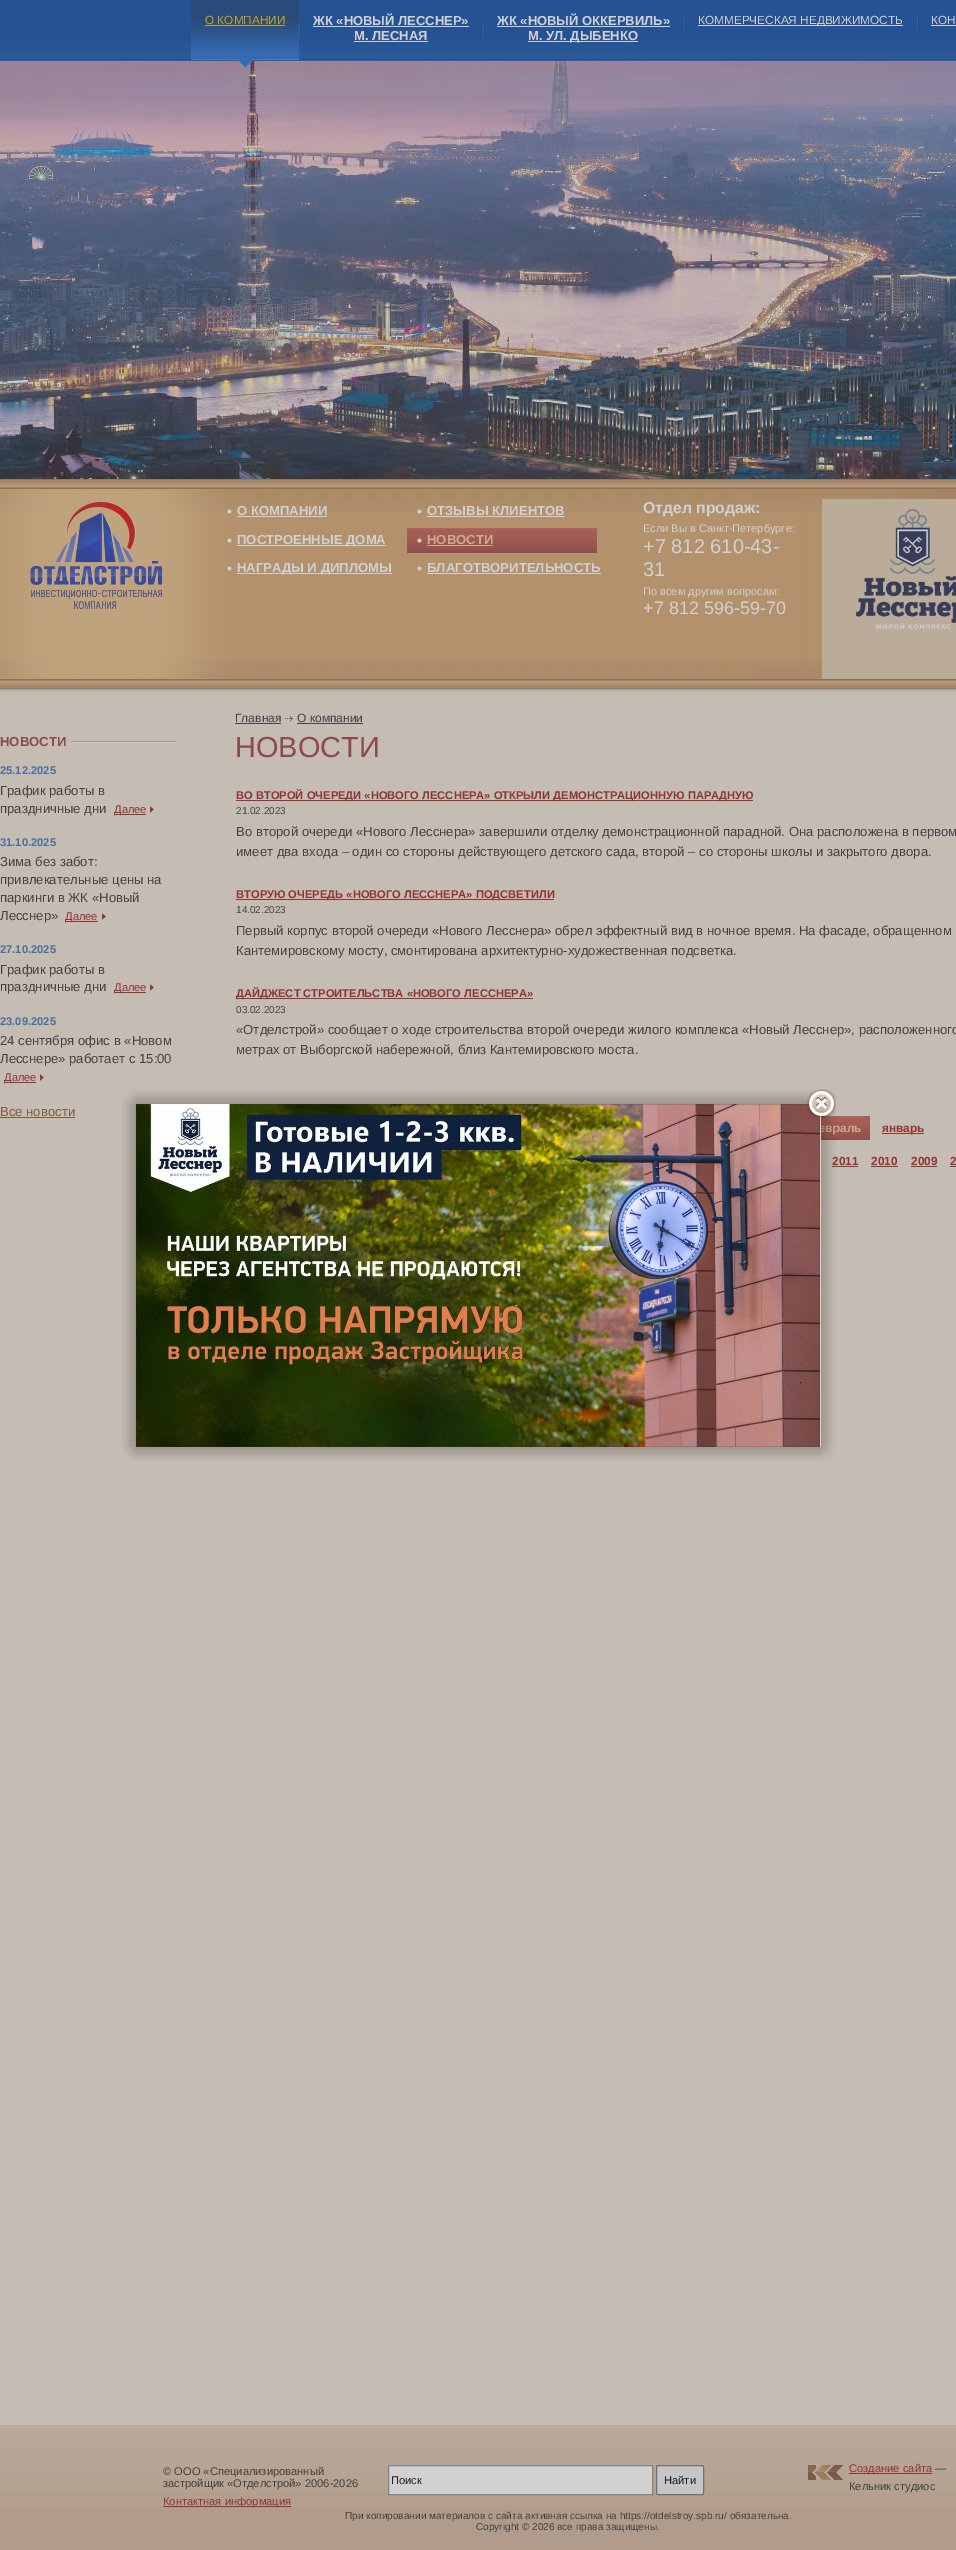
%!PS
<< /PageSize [956 2550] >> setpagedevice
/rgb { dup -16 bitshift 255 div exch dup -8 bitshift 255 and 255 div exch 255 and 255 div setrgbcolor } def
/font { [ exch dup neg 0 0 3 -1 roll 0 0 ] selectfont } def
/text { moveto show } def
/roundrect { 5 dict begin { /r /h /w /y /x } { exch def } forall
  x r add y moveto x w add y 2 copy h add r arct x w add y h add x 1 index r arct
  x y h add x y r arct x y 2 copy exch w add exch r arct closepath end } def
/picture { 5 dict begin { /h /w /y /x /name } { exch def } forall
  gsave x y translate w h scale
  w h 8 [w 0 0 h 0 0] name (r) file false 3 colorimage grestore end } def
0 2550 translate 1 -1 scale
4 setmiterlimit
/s1 { /LiberationSans-Regular 11.8 font 16#C5A71F rgb } def
/s2 { /LiberationSans-Bold 13 font 16#D1D1D1 rgb } def
/s3 { /LiberationSans-Regular 11.8 font 16#D1D1D1 rgb } def
/s4 { /LiberationSans-Bold 13.12 font 16#D1D1D1 rgb } def
/s5 { /LiberationSans-Bold 13.12 font 16#C9AD8C rgb } def
/s6 { /LiberationSans-Bold 15.75 font 16#D1D1D1 rgb } def
/s7 { /LiberationSans-Regular 11 font 16#D1D1D1 rgb } def
/s8 { /LiberationSans-Regular 20 font 16#D1D1D1 rgb } def
/s9 { /LiberationSans-Regular 18 font 16#D1D1D1 rgb } def
/s10 { /LiberationSans-Bold 13.12 font 16#8D494B rgb } def
/s11 { /LiberationSans-Bold 11.15 font 16#4B6E9D rgb } def
/s12 { /LiberationSans-Regular 13.12 font 16#424242 rgb } def
/s13 { /LiberationSans-Regular 11.15 font 16#903431 rgb } def
/s14 { /LiberationSans-Regular 13.12 font 16#7C5C3B rgb } def
/s15 { /LiberationSans-Regular 12 font 16#424242 rgb } def
/s16 { /LiberationSans-Regular 29 font 16#8D494B rgb } def
/s17 { /LiberationSans-Bold 11.15 font 16#903431 rgb } def
/s18 { /LiberationSans-Regular 10 font 16#424242 rgb } def
/s19 { /LiberationSans-Bold 11.8 font 16#C9AD8C rgb } def
/s20 { /LiberationSans-Bold 11.8 font 16#903431 rgb } def
/s21 { /LiberationSans-Regular 11.15 font 16#424242 rgb } def
/s22 { /LiberationSans-Regular 11.15 font 16#1F1F1F rgb } def
/s23 { /LiberationSans-Regular 10.05 font 16#424242 rgb } def
16#C5BCB4 rgb
0 0 956 2550 rectfill
16#255295 rgb
0 0 956 41 rectfill
(pic1.raw) 0 41 956 20 picture
16#2B4A79 rgb
191 0 108 20 rectfill
(pic2.raw) 191 20 108 41 picture
s1
(О КОМПАНИИ) 205 24 text
205 25 80 1 rectfill
(pic5.raw) 0 61 956 418 picture
(pic3.raw) 238 59 15 9 picture
(pic4.raw) 299 23 2 16 picture
s2
(ЖК «НОВЫЙ ЛЕССНЕР») 313 25 text
313 26 156 1 rectfill
(М. ЛЕСНАЯ) 354 40 text
354 41 74 1 rectfill
(pic4.raw) 483 23 2 16 picture
(ЖК «НОВЫЙ ОККЕРВИЛЬ») 497 25 text
497 26 173 1 rectfill
528 41 110 1 rectfill
(М. УЛ. ДЫБЕНКО) 528 40 text
(pic4.raw) 684 15 2 16 picture
698 25 205 1 rectfill
s3
(КОММЕРЧЕСКАЯ НЕДВИЖИМОСТЬ) 698 24 text
(pic4.raw) 917 15 2 16 picture
(КОН) 931 24 text
931 25 25 1 rectfill
16#AF8D6A rgb
0 512 822 146 rectfill
(pic6.raw) 0 479 956 33 picture
(pic7.raw) 0 658 956 35 picture
(pic8.raw) 0 489 932 190 picture
(pic9.raw) 30 502 132 107 picture
(pic10.raw) 227 509 5 5 picture
s4
(О КОМПАНИИ) 237 515 text
237 516 90 1 rectfill
(pic11.raw) 227 538 5 5 picture
237 545 149 1 rectfill
(ПОСТРОЕННЫЕ ДОМА) 237 544 text
(pic11.raw) 227 566 5 5 picture
237 573 155 1 rectfill
(НАГРАДЫ И ДИПЛОМЫ) 237 572 text
(pic12.raw) 417 509 5 5 picture
(ОТЗЫВЫ КЛИЕНТОВ) 427 515 text
427 516 138 1 rectfill
16#914E4E rgb
407 550 190 3 rectfill
(pic13.raw) 407 528 190 22 picture
(pic14.raw) 417 538 5 5 picture
s5
(НОВОСТИ) 427 544 text
427 545 66 1 rectfill
(pic15.raw) 417 566 5 5 picture
s4
(БЛАГОТВОРИТЕЛЬНОСТЬ) 427 572 text
427 573 174 1 rectfill
s6
(Отдел продаж:) 643 513 text
s7
(Если Вы в Санкт-Петербурге:) 643 532 text
s8
(+7 812 610-43-) 643 553 text
(31) 643 576 text
s7
(По всем другим вопросам:) 643 595 text
s9
(+7 812 596-59-70) 643 614 text
16#BBAB99 rgb
822 499 134 180 rectfill
(pic16.raw) 856 509 100 120 picture
(pic17.raw) 72 741 103 2 picture
s10
(НОВОСТИ) 0 746 text
s11
(25.12.2025) 0 774 text
s12
(График работы в) 0 795 text
(праздничные дни) 0 813 text
16#903431 rgb
114 814 32 1 rectfill
s13
(Далее) 114 813 text
(pic18.raw) 150 806 4 7 picture
s11
(31.10.2025) 0 846 text
s12
(Зима без забот:) 0 866 text
(привлекательные цены на) 0 884 text
(паркинги в ЖК «Новый) 0 902 text
(Лесснер») 0 920 text
16#903431 rgb
65 921 33 1 rectfill
s13
(Далее) 65 920 text
(pic18.raw) 102 913 4 7 picture
s11
(27.10.2025) 0 953 text
s12
(График работы в) 0 974 text
(праздничные дни) 0 991 text
16#903431 rgb
114 992 32 1 rectfill
s13
(Далее) 114 991 text
(pic18.raw) 150 984 4 7 picture
s11
(23.09.2025) 0 1025 text
s12
(24 сентября офис в «Новом) 0 1045 text
(Лесснере» работает с 15:00) 0 1063 text
16#903431 rgb
4 1082 32 1 rectfill
s13
(Далее) 4 1081 text
(pic18.raw) 40 1074 4 7 picture
s14
(Все новости) 0 1116 text
0 1117 75 1 rectfill
s15
(Главная) 235 722 text
16#444446 rgb
235 723 46 1 rectfill
(pic19.raw) 285 716 8 5 picture
s15
(О компании) 297 722 text
16#444446 rgb
297 723 66 1 rectfill
s16
(НОВОСТИ) 235 757 text
16#903431 rgb
236 800 517 1 rectfill
s17
(ВО ВТОРОЙ ОЧЕРЕДИ «НОВОГО ЛЕССНЕРА» ОТКРЫЛИ ДЕМОНСТРАЦИОННУЮ ПАРАДНУЮ) 236 799 text
s18
(21.02.2023) 236 814 text
s12
(Во второй очереди «Нового Лесснера» завершили отделку демонстрационной парадной. Она расположена в первом) 236 836 text
(имеет два входа – один со стороны действующего детского сада, второй – со стороны школы и закрытого двора.) 236 856 text
16#903431 rgb
236 899 318 1 rectfill
s17
(ВТОРУЮ ОЧЕРЕДЬ «НОВОГО ЛЕССНЕРА» ПОДСВЕТИЛИ) 236 898 text
s18
(14.02.2023) 236 913 text
s12
(Первый корпус второй очереди «Нового Лесснера» обрел эффектный вид в ночное время. На фасаде, обращенном) 236 935 text
(Кантемировскому мосту, смонтирована архитектурно-художественная подсветка.) 236 955 text
16#903431 rgb
236 998 297 1 rectfill
s17
(ДАЙДЖЕСТ СТРОИТЕЛЬСТВА «НОВОГО ЛЕССНЕРА») 236 997 text
s18
(03.02.2023) 236 1013 text
s12
(«Отделстрой» сообщает о ходе строительства второй очереди жилого комплекса «Новый Лесснер», расположенного) 236 1034 text
(метрах от Выборгской набережной, близ Кантемировского моста.) 236 1054 text
(pic20.raw) 821 1116 49 22 picture
s19
(евраль) 819 1132 text
16#914E4E rgb
821 1138 49 2 rectfill
16#903431 rgb
882 1133 42 1 rectfill
(январь) 882 1132 text
(2011) 832 1165 text
832 1166 26 1 rectfill
(2010) 871 1165 text
871 1166 27 1 rectfill
(2009) 911 1165 text
911 1166 26 1 rectfill
(2) 950 1165 text
950 1166 6 1 rectfill
16#B19C8B rgb
0 2507 956 43 rectfill
(pic21.raw) 0 2425 956 82 picture
s21
(© ООО «Специализированный) 163 2475 text
(застройщик «Отделстрой» 2006-2026) 163 2487 text
16#903431 rgb
163 2506 128 1 rectfill
(Контактная информация) 163 2505 text
16#D1D1D1 rgb
388.5 2465.5 moveto 652.5 2465.5 lineto 652.5 2494.5 lineto 388.5 2494.5 lineto closepath gsave fill grestore
16#818386 rgb
stroke
s22
(Поиск) 391 2484 text
16#C6C6C6 rgb
656.5 2465.5 47 29 1.5 roundrect gsave fill grestore
16#717171 rgb
stroke
s22
(Найти) 664 2484 text
s23
(При копировании материалов с сайта активная ссылка на https://otdelstroy.spb.ru/ обязательна.) 345 2519 text
(Copyright © 2026 все права защищены.) 476 2530 text
(pic22.raw) 808 2465 35 15 picture
16#903431 rgb
849 2473 83 1 rectfill
s13
(Создание сайта) 849 2472 text
s21
(—) 935 2472 text
(Кельник студиос) 849 2490 text
16#E3D2C2 rgb
820 1115 1 332 rectfill
(pic23.raw) 122 1089 14 15 picture
(pic25.raw) 136 1090 685 14 picture
(pic26.raw) 821 1089 14 14 picture
(pic28.raw) 136 1104 684 343 picture
(pic29.raw) 821 1104 15 343 picture
(pic24.raw) 807 1089 29 29 picture
(pic27.raw) 121 1104 15 343 picture
(pic30.raw) 122 1447 14 14 picture
(pic31.raw) 136 1447 685 15 picture
(pic32.raw) 821 1447 15 14 picture
showpage
